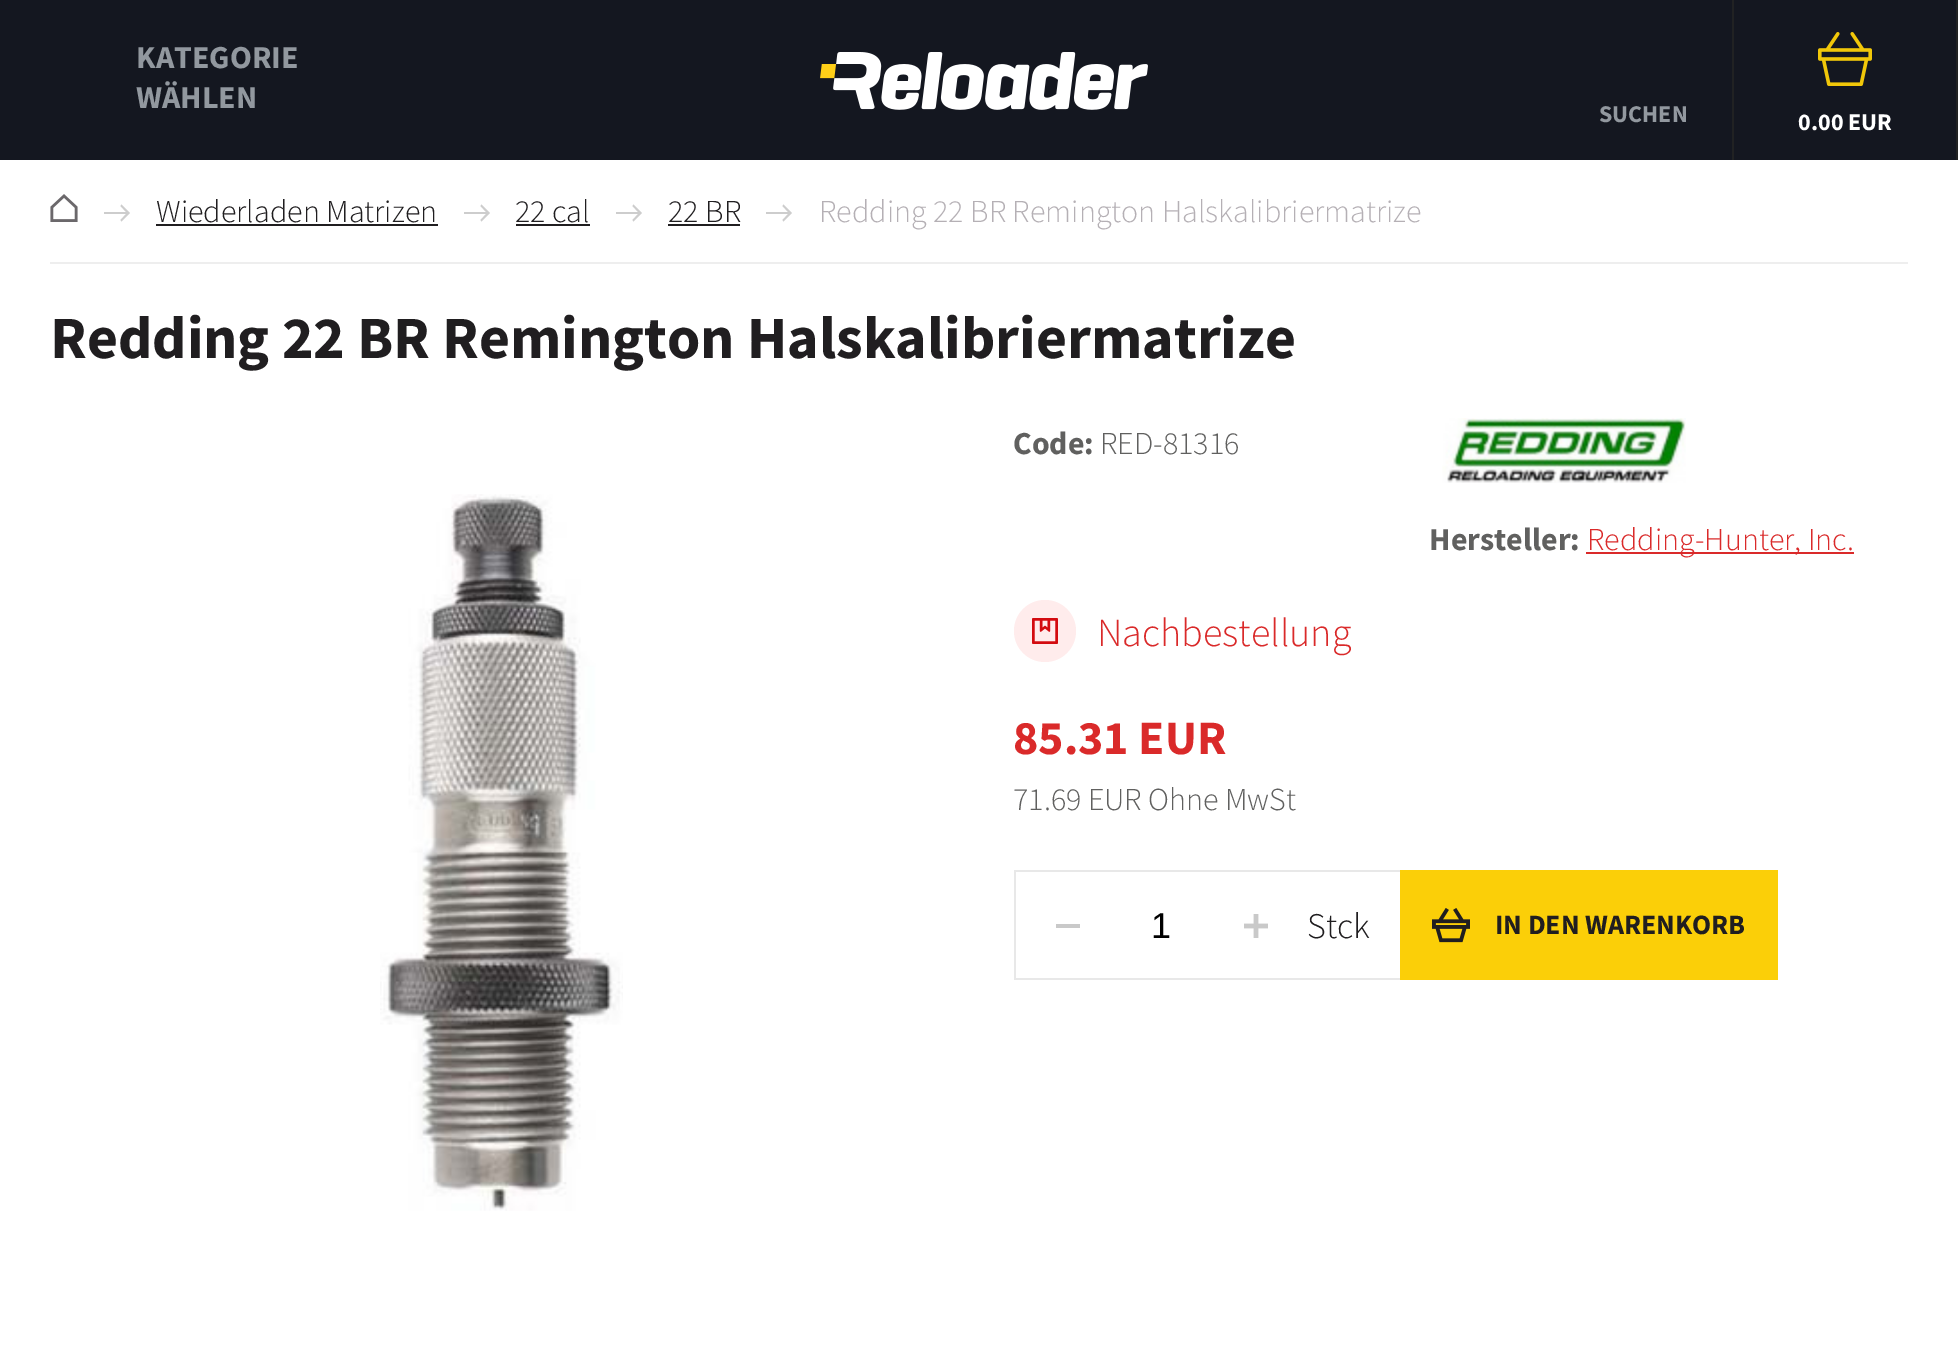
%!PS
<< /PageSize [1958 1345] >> setpagedevice
/rgb { dup -16 bitshift 255 div exch dup -8 bitshift 255 and 255 div exch 255 and 255 div setrgbcolor } def
/font { [ exch dup neg 0 0 3 -1 roll 0 0 ] selectfont } def
/text { moveto show } def
/circle { newpath 0 360 arc closepath } def
/picture { 5 dict begin { /h /w /y /x /name } { exch def } forall
  gsave x y translate w h scale
  w h 8 [w 0 0 h 0 0] name (r) file false 3 colorimage grestore end } def
0 1345 translate 1 -1 scale
4 setmiterlimit
/s1 { /SourceSansPro-Bold 32 font 16#92989F rgb } def
/s2 { /SourceSansPro-Bold 24 font 16#92989F rgb } def
/s3 { /SourceSansPro-Bold 24 font 16#FFFFFF rgb } def
/s4 { /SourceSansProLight-Light 32 font 16#201E20 rgb } def
/s5 { /SourceSansProLight-Light 32 font 16#B5B0B5 rgb } def
/s6 { /SourceSansPro-Bold 60 font 16#201E20 rgb } def
/s7 { /SourceSansPro-Bold 32 font 16#60605F rgb } def
/s8 { /SourceSansProLight-Light 32 font 16#60605F rgb } def
/s9 { /SourceSansProLight-Light 32 font 16#DA2A2A rgb } def
/s10 { /SourceSansProLight-Light 40 font 16#DA2A2A rgb } def
/s11 { /SourceSansPro-Bold 48 font 16#DA2A2A rgb } def
/s12 { /LiberationSans-Regular 36 font 16#000000 rgb } def
/s13 { /SourceSansProLight-Light 36 font 16#201E20 rgb } def
/s14 { /SourceSansPro-Bold 28 font 16#201E20 rgb } def
16#FFFFFF rgb
0 0 1958 1345 rectfill
16#141720 rgb
0 0 1956 160 rectfill
s1
(KATEGORIE) 136 68 text
(WÄHLEN) 136 108 text
(pic1.raw) 820 52 328 58 picture
s2
(SUCHEN) 1599 122 text
16#212223 rgb
1956 0 2 160 rectfill
1732 0 2 160 rectfill
(pic2.raw) 1818 32 54 54 picture
s3
(0.00 EUR) 1798 130 text
16#EEEEEE rgb
50 262 1858 2 rectfill
(pic3.raw) 50 194 28 28 picture
16#CDCDCD rgb
130 213 moveto 121.5 204.5 lineto 120.5 206 lineto 126 212 lineto 104 212 lineto 104 214 lineto 126 214 lineto 120.5 220 lineto 121.5 221.5 lineto closepath fill
s4
(Wiederladen Matrizen) 156 222 text
156 224 282 2 rectfill
16#CDCDCD rgb
490 213 moveto 481.5 204.5 lineto 480.5 206 lineto 486 212 lineto 464 212 lineto 464 214 lineto 486 214 lineto 480.5 220 lineto 481.5 221.5 lineto closepath fill
s4
(22 cal) 515 222 text
516 224 74 2 rectfill
16#CDCDCD rgb
642 213 moveto 633.5 204.5 lineto 632.5 206 lineto 638 212 lineto 616 212 lineto 616 214 lineto 638 214 lineto 632.5 220 lineto 633.5 221.5 lineto closepath fill
s4
(22 BR) 668 222 text
668 224 72 2 rectfill
16#CDCDCD rgb
792 213 moveto 783.5 204.5 lineto 782.5 206 lineto 788 212 lineto 766 212 lineto 766 214 lineto 788 214 lineto 782.5 220 lineto 783.5 221.5 lineto closepath fill
s5
(Redding 22 BR Remington Halskalibriermatrize) 819 222 text
s6
(Redding 22 BR Remington Halskalibriermatrize) 50 358 text
(pic4.raw) 380 494 243 717 picture
s7
(Code:) 1013 454 text
s8
(RED-81316) 1100 454 text
(pic5.raw) 1442 418 244 65 picture
s7
(Hersteller:) 1429 550 text
16#DA2A2A rgb
1586 552 268 2 rectfill
s9
(Redding-Hunter, Inc.) 1587 550 text
16#FFECEC rgb
1045 631 31 circle fill
(pic6.raw) 1032 618 26 26 picture
s10
(Nachbestellung) 1097 646 text
s11
(85.31 EUR) 1013 754 text
s8
(71.69 EUR Ohne MwSt) 1013 810 text
16#E8E8E8 rgb
1014 870 386 2 rectfill
1014 978 386 2 rectfill
1014 870 2 110 rectfill
16#C9C9C9 rgb
1056 924 24 4 rectfill
s12
(1) 1151 938 text
(pic7.raw) 1244 914 24 24 picture
s13
(Stck) 1307 938 text
16#FBCF08 rgb
1400 870 378 110 rectfill
(pic8.raw) 1432 908 38 35 picture
s14
(IN DEN WARENKORB) 1495 934 text
showpage
